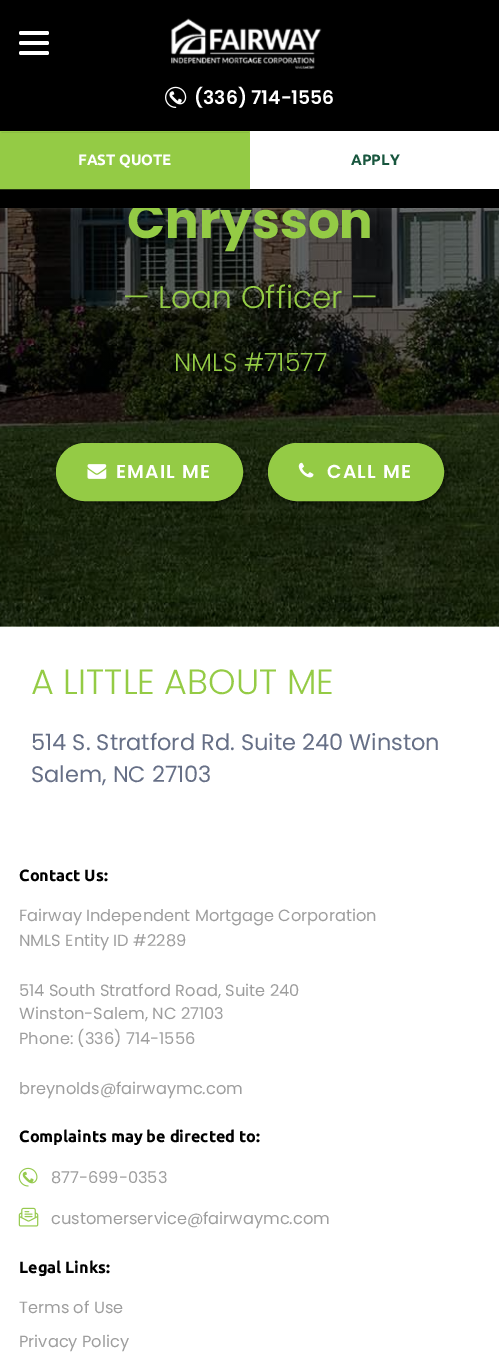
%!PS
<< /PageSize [499 1369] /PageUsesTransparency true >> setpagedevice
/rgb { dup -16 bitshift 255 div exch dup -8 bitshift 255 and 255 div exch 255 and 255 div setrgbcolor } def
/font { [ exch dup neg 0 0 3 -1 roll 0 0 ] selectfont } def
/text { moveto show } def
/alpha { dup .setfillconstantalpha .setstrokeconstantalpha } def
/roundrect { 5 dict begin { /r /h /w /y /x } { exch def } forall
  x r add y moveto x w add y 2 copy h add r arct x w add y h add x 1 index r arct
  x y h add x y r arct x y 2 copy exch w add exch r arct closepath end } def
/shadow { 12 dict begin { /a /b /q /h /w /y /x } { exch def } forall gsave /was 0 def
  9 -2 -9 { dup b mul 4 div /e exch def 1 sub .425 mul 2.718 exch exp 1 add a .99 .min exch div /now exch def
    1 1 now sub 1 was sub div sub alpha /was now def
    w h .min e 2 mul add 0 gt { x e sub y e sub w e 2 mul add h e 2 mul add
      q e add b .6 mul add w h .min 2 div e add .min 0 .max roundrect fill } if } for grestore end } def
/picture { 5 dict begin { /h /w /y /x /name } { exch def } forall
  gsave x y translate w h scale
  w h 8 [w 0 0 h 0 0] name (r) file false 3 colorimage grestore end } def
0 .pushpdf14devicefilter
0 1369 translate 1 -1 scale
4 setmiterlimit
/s1 { /Poppins-Bold 50 font 16#94CB45 rgb } def
/s2 { /Poppins-SemiBold 18.75 font 16#FFFFFF rgb } def
/s3 { /Ubuntu-Bold 15 font 16#FFFFFF rgb } def
/s4 { /Ubuntu-Bold 15 font 16#18563E rgb } def
/s5 { /Poppins-Light 31.25 font 16#94CB45 rgb } def
/s6 { /Poppins-Light 25 font 16#94CB45 rgb } def
/s7 { /Poppins-Light 35 font 16#94CB45 rgb } def
/s8 { /Poppins-Regular 22.5 font 16#666F86 rgb } def
/s9 { /Ubuntu-Bold 16.25 font 16#000000 rgb } def
/s10 { /Poppins-Regular 16.25 font 16#9D9D9D rgb } def
16#FFFFFF rgb
0 0 499 1369 rectfill
(pic3.raw) 0 208 499 419 picture
0 0 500 208 0 3 0.15 shadow
s1
(Chrysson) 127 238 text
16#000000 rgb
0 0 499 208 rectfill
16#FFFFFF rgb
19 31 30 4 2 roundrect fill
19 41 30 4 2 roundrect fill
19 51 30 4 2 roundrect fill
(pic1.raw) 171 18 151 51 picture
(pic2.raw) 165 86 22 22 picture
s2
(\(336\) 714-1556) 194 104 text
16#86B73F rgb
1 132 248 1 rectfill
16#94CB45 rgb
0.5 131.5 249 57 rectstroke
1 133 248 55 rectfill
s3
(FAST QUOTE) 78 165 text
250 131 249 58 rectfill
s4
(APPLY) 351 165 text
s5
(— Loan Officer —) 123 308 text
s6
(NMLS #71577) 174 371 text
16#000000 rgb
63 449 178 51 25.5 4 1 shadow
16#94CB45 rgb
56.5 443.5 186 57 28.5 roundrect gsave fill grestore
stroke
(pic4.raw) 87 464 20 15 picture
/Poppins-SemiBold 18.75 font
16#FFFFFF rgb
116 478 moveto 1.25 0 (EMAIL ME) ashow
16#000000 rgb
274 449 169 51 25.5 4 1 shadow
16#94CB45 rgb
268.5 443.5 175 57 28.5 roundrect gsave fill grestore
stroke
(pic5.raw) 298 462 16 16 picture
16#FFFFFF rgb
327 478 moveto 1.25 0 (CALL ME) ashow
s7
(A LITTLE ABOUT ME) 31 694 text
s8
(514 S. Stratford Rd. Suite 240 Winston) 31 750 text
(Salem, NC 27103) 31 782 text
s9
(Contact Us:) 19 881 text
s10
(Fairway Independent Mortgage Corporation) 19 921 text
(NMLS Entity ID #2289) 19 946 text
(514 South Stratford Road, Suite 240) 19 996 text
(Winston-Salem, NC 27103) 19 1019 text
(Phone: \(336\) 714-1556) 19 1044 text
(breynolds@fairwaymc.com) 19 1094 text
s9
(Complaints may be directed to:) 19 1142 text
(pic6.raw) 18 1167 20 20 picture
s10
(877-699-0353) 51 1183 text
(pic7.raw) 18 1207 21 20 picture
(customerservice@fairwaymc.com) 51 1224 text
s9
(Legal Links:) 19 1273 text
s10
(Terms of Use) 19 1313 text
(Privacy Policy) 19 1347 text
.poppdf14devicefilter showpage
